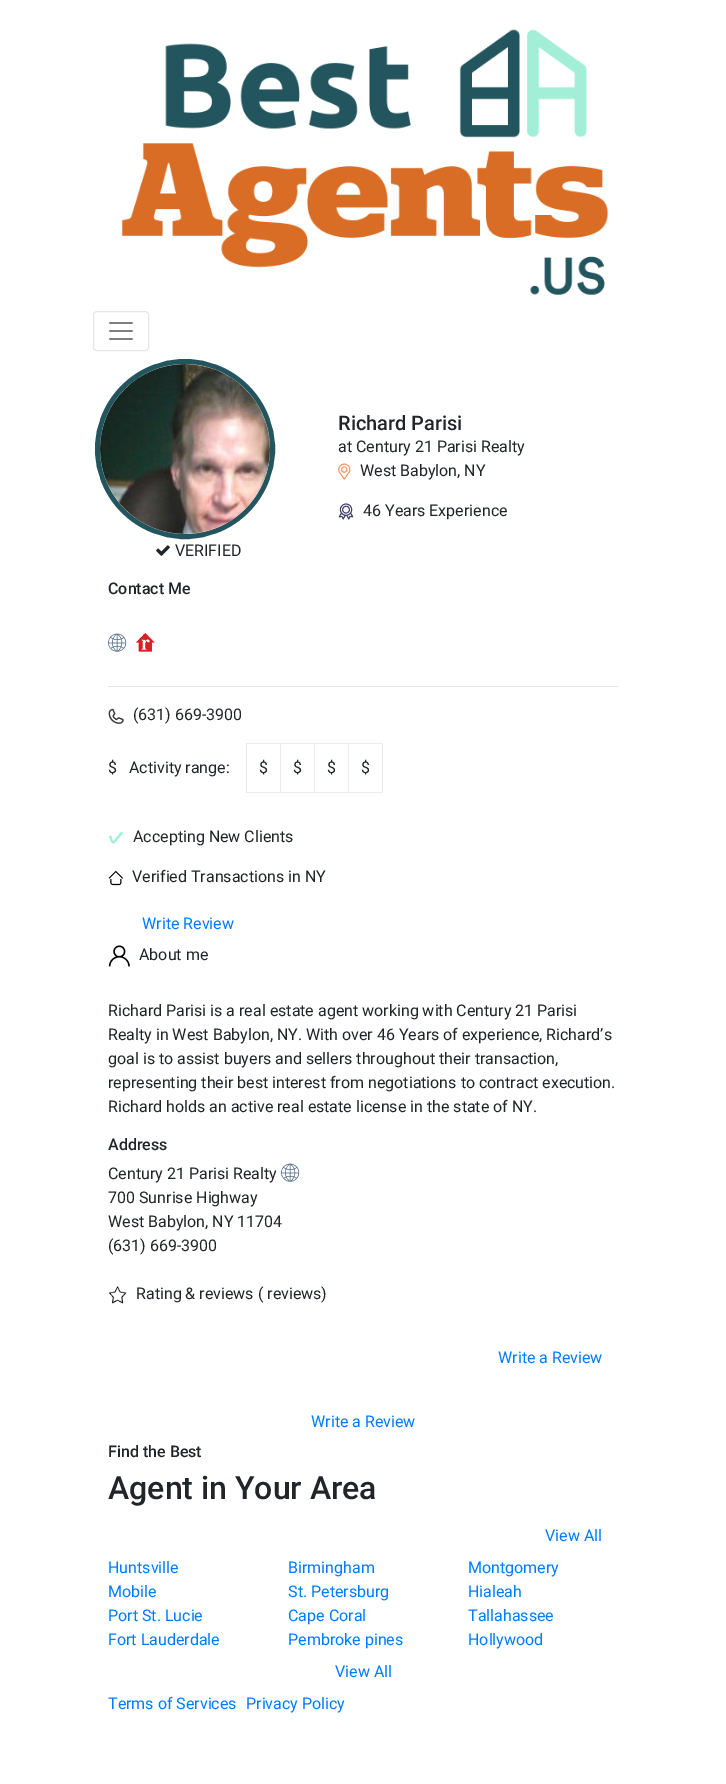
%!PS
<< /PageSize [726 1784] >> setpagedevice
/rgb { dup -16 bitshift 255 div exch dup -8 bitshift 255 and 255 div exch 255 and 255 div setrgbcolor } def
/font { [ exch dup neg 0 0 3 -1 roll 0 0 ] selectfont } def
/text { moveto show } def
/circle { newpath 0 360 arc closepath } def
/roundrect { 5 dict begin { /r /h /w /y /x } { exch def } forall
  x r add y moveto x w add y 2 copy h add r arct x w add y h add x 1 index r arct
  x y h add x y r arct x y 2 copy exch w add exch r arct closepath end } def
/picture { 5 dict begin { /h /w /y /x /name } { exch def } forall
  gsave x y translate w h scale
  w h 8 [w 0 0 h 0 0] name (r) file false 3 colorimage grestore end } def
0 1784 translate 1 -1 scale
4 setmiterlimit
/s1 { /Roboto-Medium 20 font 16#212529 rgb } def
/s2 { /Roboto-Regular 16 font 16#212529 rgb } def
/s3 { /Roboto-Medium 16 font 16#212529 rgb } def
/s4 { /Roboto-Regular 16 font 16#007BFF rgb } def
/s5 { /Roboto-Medium 32 font 16#212529 rgb } def
16#FFFFFF rgb
0 0 726 1784 rectfill
(pic1.raw) 121 29 488 266 picture
16#E6E6E6 rgb
93.5 311.5 55 39 3.5 roundrect stroke
(pic2.raw) 109 322 24 18 picture
s1
(Richard Parisi) 338 430 text
s2
(at Century 21 Parisi Realty) 338 452 text
(pic3.raw) 338 463 13 17 picture
(West Babylon, NY) 360 476 text
(pic4.raw) 338 503 16 17 picture
(46 Years Experience) 363 516 text
16#23555F rgb
5 setlinewidth
185 449 87.5 circle stroke
(pic5.raw) 100 364 170 170 picture
(pic6.raw) 156 545 14 11 picture
s2
(VERIFIED) 175 556 text
s3
(Contact Me) 108 594 text
(pic7.raw) 108 633 19 19 picture
(pic8.raw) 136 633 19 19 picture
16#E6E6E6 rgb
108 686 510 1 rectfill
(pic9.raw) 108 708 16 16 picture
s2
(\(631\) 669-3900) 133 720 text
($) 108 773 text
(Activity range:) 129 773 text
16#E9ECEF rgb
246 743 137 1 rectfill
382 743 1 50 rectfill
246 792 137 1 rectfill
246 743 1 50 rectfill
s2
($) 259 773 text
16#E9ECEF rgb
280 743 1 50 rectfill
s2
($) 293 773 text
16#E9ECEF rgb
314 743 1 50 rectfill
s2
($) 327 773 text
16#E9ECEF rgb
348 743 1 50 rectfill
s2
($) 361 773 text
(pic10.raw) 108 831 16 13 picture
(Accepting New Clients) 133 842 text
(pic11.raw) 108 870 15 16 picture
(Verified Transactions in NY) 132 882 text
s4
(Write Review) 142 929 text
(pic12.raw) 108 945 22 22 picture
s2
(About me) 139 960 text
(Richard Parisi is a real estate agent working with Century 21 Parisi) 108 1016 text
(Realty in West Babylon, NY. With over 46 Years of experience, Richard’s) 108 1040 text
(goal is to assist buyers and sellers throughout their transaction,) 108 1064 text
(representing their best interest from negotiations to contract execution.) 108 1088 text
(Richard holds an active real estate license in the state of NY.) 108 1112 text
s3
(Address) 108 1150 text
s2
(Century 21 Parisi Realty) 108 1179 text
(pic7.raw) 281 1163 19 19 picture
(700 Sunrise Highway) 108 1203 text
(West Babylon, NY 11704) 108 1227 text
(\(631\) 669-3900) 108 1251 text
(pic13.raw) 108 1286 19 18 picture
(Rating & reviews \( reviews\)) 136 1299 text
s4
(Write a Review) 498 1363 text
(Write a Review) 311 1427 text
s3
(Find the Best) 108 1457 text
s5
(Agent in Your Area) 108 1499 text
s4
(View All) 545 1541 text
(Huntsville) 108 1573 text
(Birmingham) 288 1573 text
(Montgomery) 468 1573 text
(Mobile) 108 1597 text
(St. Petersburg) 288 1597 text
(Hialeah) 468 1597 text
(Port St. Lucie) 108 1621 text
(Cape Coral) 288 1621 text
(Tallahassee) 468 1621 text
(Fort Lauderdale) 108 1645 text
(Pembroke pines) 288 1645 text
(Hollywood) 468 1645 text
(View All) 335 1677 text
(Terms of Services) 108 1709 text
(Privacy Policy) 246 1709 text
showpage
